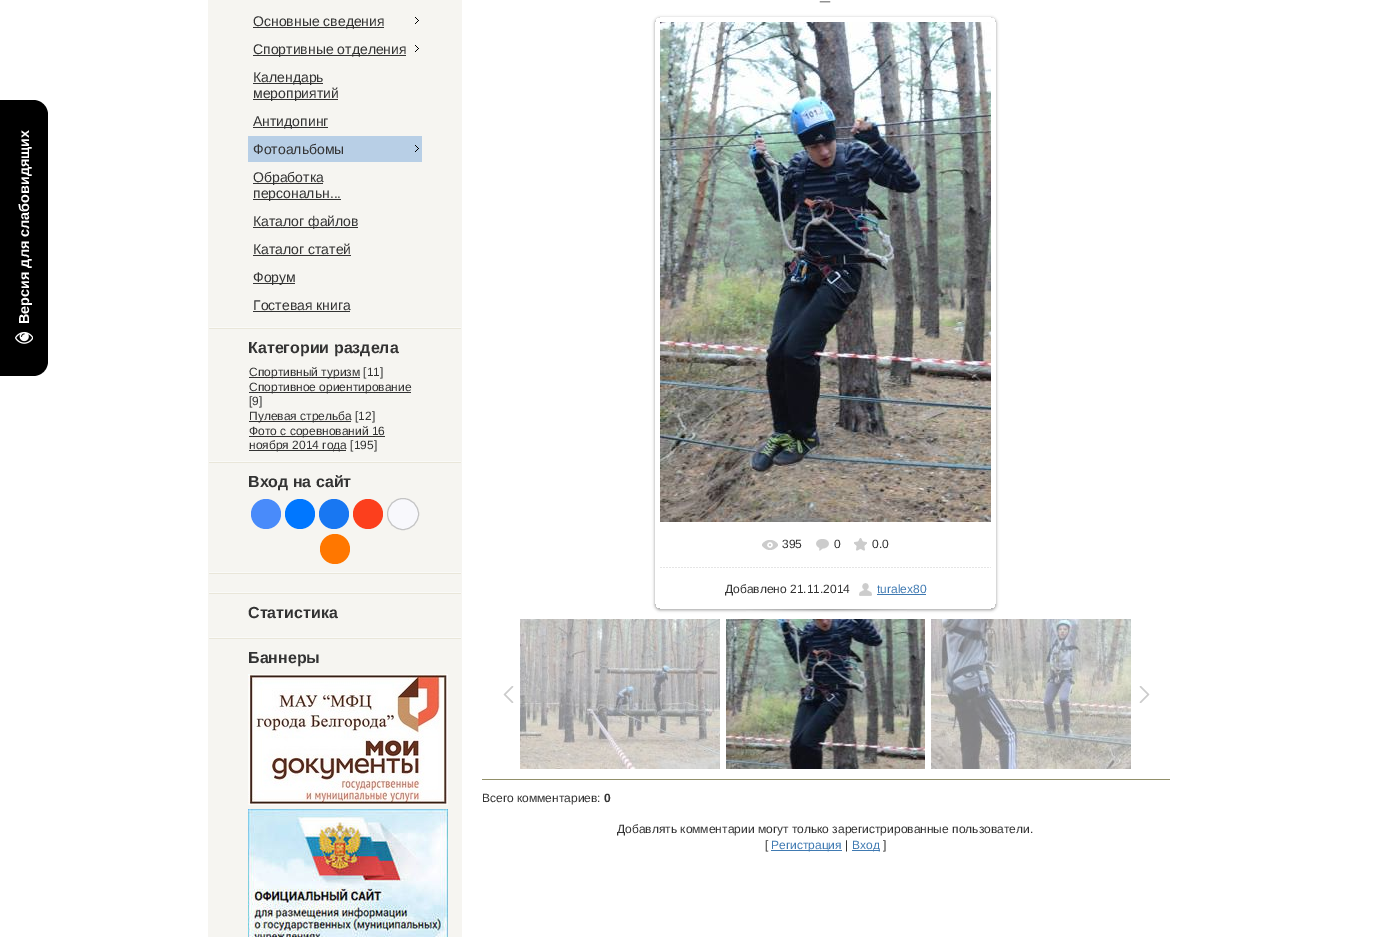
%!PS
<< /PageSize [1377 937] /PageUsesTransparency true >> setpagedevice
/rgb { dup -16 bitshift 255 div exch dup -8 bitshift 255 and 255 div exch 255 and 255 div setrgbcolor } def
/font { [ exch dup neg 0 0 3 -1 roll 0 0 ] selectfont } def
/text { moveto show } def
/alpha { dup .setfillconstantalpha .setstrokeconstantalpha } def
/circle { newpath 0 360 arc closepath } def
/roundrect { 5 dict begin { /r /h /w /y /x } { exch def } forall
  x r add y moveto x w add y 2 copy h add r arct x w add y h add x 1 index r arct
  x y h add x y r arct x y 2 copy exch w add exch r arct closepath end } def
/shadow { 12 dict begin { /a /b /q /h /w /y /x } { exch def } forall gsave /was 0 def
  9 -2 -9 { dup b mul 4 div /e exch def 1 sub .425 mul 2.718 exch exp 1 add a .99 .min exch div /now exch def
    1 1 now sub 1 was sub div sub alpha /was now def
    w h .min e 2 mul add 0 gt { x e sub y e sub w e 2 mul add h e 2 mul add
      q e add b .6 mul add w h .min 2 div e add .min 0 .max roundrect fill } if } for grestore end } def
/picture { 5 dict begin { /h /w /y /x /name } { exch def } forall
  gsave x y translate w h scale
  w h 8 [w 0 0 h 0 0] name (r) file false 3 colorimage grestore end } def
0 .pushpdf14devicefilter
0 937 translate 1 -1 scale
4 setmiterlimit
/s1 { /LiberationSans-Regular 14 font 16#333333 rgb } def
/s2 { /LiberationSans-Bold 16 font 16#333333 rgb } def
/s3 { /LiberationSans-Regular 12 font 16#333333 rgb } def
/s4 { /LiberationSans-Bold 18 font 16#333333 rgb } def
/s5 { /LiberationSans-Regular 12 font 16#407AB2 rgb } def
/s6 { /LiberationSans-Bold 12 font 16#333333 rgb } def
16#FFFFFF rgb
0 0 1377 937 rectfill
16#000000 rgb
0 100 moveto 33 100 lineto 41.5 100 48 106.5 48 115 curveto 48 361 lineto 48 369.5 41.5 376 33 376 curveto 0 376 lineto closepath fill
/LiberationSans-Bold 14.4 font
16#FFFFFF rgb
gsave 29 324 translate -90 rotate 0 0 moveto (Версия для слабовидящих) show grestore
(pic1.raw) 15 331 18 13 picture
16#F6F5F1 rgb
208 0 254 937 rectfill
(pic2.raw) 209 327 252 2 picture
16#333333 rgb
253 27 131 1 rectfill
s1
(Основные сведения) 253 26 text
(pic3.raw) 415 17 4 7 picture
253 55 153 1 rectfill
(Спортивные отделения) 253 54 text
(pic3.raw) 415 45 4 7 picture
253 83 70 1 rectfill
(Календарь) 253 82 text
253 99 85 1 rectfill
(мероприятий) 253 98 text
253 127 75 1 rectfill
(Антидопинг) 253 126 text
16#B8CFE6 rgb
248 136 174 26 rectfill
s1
(Фотоальбомы) 253 154 text
(pic4.raw) 415 145 4 7 picture
253 183 70 1 rectfill
(Обработка) 253 182 text
253 199 88 1 rectfill
(персональн...) 253 198 text
253 227 105 1 rectfill
(Каталог файлов) 253 226 text
(Каталог статей) 253 254 text
253 255 98 1 rectfill
253 283 42 1 rectfill
(Форум) 253 282 text
(Гостевая книга) 253 310 text
253 311 97 1 rectfill
(pic2.raw) 209 461 252 2 picture
s2
(Категории раздела) 248 353 text
249 377 111 1 rectfill
s3
(Спортивный туризм [11]) 249 376 text
249 392 162 1 rectfill
(Спортивное ориентирование) 249 391 text
([9]) 249 405 text
249 421 102 1 rectfill
(Пулевая стрельба [12]) 249 420 text
249 436 136 1 rectfill
(Фото с соревнований 16) 249 435 text
249 450 97 1 rectfill
(ноября 2014 года [195]) 249 449 text
(pic2.raw) 209 572 252 2 picture
s2
(Вход на сайт) 248 487 text
16#498BFA rgb
266 514 15 circle fill
16#0077FF rgb
300 514 15 circle fill
16#1877F2 rgb
334 514 15 circle fill
16#FC3F1D rgb
368 514 15 circle fill
16#F8F8FC rgb
403 514 15.5 circle gsave fill grestore
16#C4C4C4 rgb
stroke
16#FF7700 rgb
335 549 15 circle fill
(pic2.raw) 209 592 252 2 picture
(pic2.raw) 209 637 252 2 picture
s2
(Статистика) 248 618 text
(Баннеры) 248 663 text
(pic5.raw) 248 674 200 131 picture
(pic6.raw) 248 809 200 128 picture
s4
(_) 820 0 text
gsave
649 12 moveto 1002 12 lineto 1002 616 lineto 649 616 lineto closepath 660 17 moveto 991 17 lineto 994 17 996 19 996 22 curveto 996 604 lineto 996 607 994 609 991 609 curveto 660 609 lineto 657 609 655 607 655 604 curveto 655 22 lineto 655 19 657 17 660 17 curveto closepath eoclip newpath
16#000000 rgb
655 18 341 592 5 1.5 0.37 shadow
grestore
(pic7.raw) 660 22 331 500 picture
(pic8.raw) 762 540 16 10 picture
s3
(395) 782 548 text
(pic9.raw) 816 539 13 12 picture
(0) 834 548 text
(pic10.raw) 854 538 13 13 picture
(0.0) 872 548 text
(pic11.raw) 660 567 331 1 picture
(Добавлено 21.11.2014) 725 593 text
(pic12.raw) 859 583 13 13 picture
s5
(turalex80) 877 593 text
877 594 49 1 rectfill
(pic13.raw) 746 609 161 3 picture
(pic14.raw) 503 686 11 17 picture
(pic15.raw) 520 619 200 150 picture
(pic16.raw) 726 619 199 150 picture
(pic17.raw) 931 619 200 150 picture
(pic18.raw) 1139 686 11 17 picture
16#918F69 rgb
482 779 688 1 rectfill
s3
(Всего комментариев:) 482 802 text
s6
(0) 604 802 text
s3
(Добавлять комментарии могут только зарегистрированные пользователи.) 617 833 text
([) 765 849 text
16#407AB2 rgb
771 850 71 1 rectfill
(Регистрация) 771 849 text
s3
(|) 845 849 text
16#407AB2 rgb
852 850 28 1 rectfill
(Вход) 852 849 text
s3
(]) 883 849 text
.poppdf14devicefilter showpage
